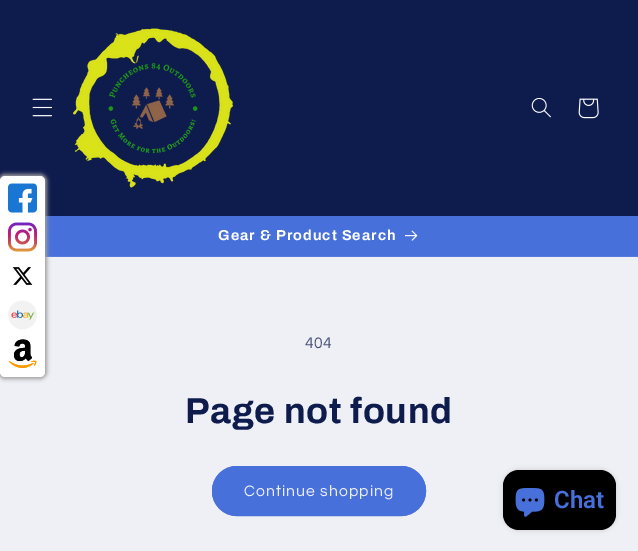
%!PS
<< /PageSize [638 551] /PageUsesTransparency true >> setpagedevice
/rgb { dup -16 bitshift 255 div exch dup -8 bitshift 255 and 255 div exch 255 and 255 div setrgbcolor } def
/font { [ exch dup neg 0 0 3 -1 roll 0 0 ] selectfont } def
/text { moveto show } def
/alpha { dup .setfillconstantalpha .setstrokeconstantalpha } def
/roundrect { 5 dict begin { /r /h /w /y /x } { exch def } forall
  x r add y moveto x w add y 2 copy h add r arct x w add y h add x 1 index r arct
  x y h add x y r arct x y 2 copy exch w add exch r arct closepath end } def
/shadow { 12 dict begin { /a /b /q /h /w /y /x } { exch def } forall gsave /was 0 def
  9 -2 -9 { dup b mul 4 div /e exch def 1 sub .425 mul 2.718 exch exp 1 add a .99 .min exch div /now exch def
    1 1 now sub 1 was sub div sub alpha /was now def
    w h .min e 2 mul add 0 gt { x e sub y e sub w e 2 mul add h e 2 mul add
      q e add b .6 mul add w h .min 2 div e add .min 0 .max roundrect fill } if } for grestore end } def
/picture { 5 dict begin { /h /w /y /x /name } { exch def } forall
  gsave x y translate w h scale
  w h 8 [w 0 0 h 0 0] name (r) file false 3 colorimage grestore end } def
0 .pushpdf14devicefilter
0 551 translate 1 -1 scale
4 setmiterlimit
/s1 { /Roboto-SemiBold 24 font 16#4770DB rgb } def
16#EFF0F5 rgb
0 0 638 551 rectfill
16#0E1B4D rgb
0 0 638 216 rectfill
(pic1.raw) 32 98 20 19 picture
(pic2.raw) 73 28 160 160 picture
(pic3.raw) 531 97 20 21 picture
(pic4.raw) 578 98 21 21 picture
16#4770DB rgb
45 216 593 40 rectfill
16#567BDE rgb
45 256 593 1 rectfill
16#9E9E9E rgb
-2 174 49 205 7 2 1 shadow
16#FFFFFF rgb
0 176 45 201 5 roundrect fill
(pic5.raw) 8 183 29 30 picture
(pic6.raw) 8 222 29 30 picture
(pic7.raw) 12 267 21 18 picture
(pic8.raw) 8 300 29 30 picture
(pic9.raw) 8 339 29 29 picture
/Archivo-Bold 14.4 font
218 240 moveto 1.05 0 (Gear & Product Search) ashow
(pic10.raw) 405 230 13 11 picture
/Questrial-Regular 15.75 font
16#465077 rgb
305 348 moveto 0.5 0 (404) ashow
/Archivo-Bold 36 font
16#0E1B4D rgb
185 423 moveto 0.75 0 (Page not found) ashow
16#4770DB rgb
212 466 214 50 25 roundrect fill
212.5 466.5 213 49 24.5 roundrect stroke
/Questrial-Regular 15.75 font
16#EFF0F5 rgb
244 496 moveto 1.05 0 (Continue shopping) ashow
16#000000 rgb
503 470 113 60 16 2.5 0.15 shadow
503 470 113 60 16 roundrect fill
(pic11.raw) 515 488 30 29 picture
s1
(Chat) 554 508 text
.poppdf14devicefilter showpage
